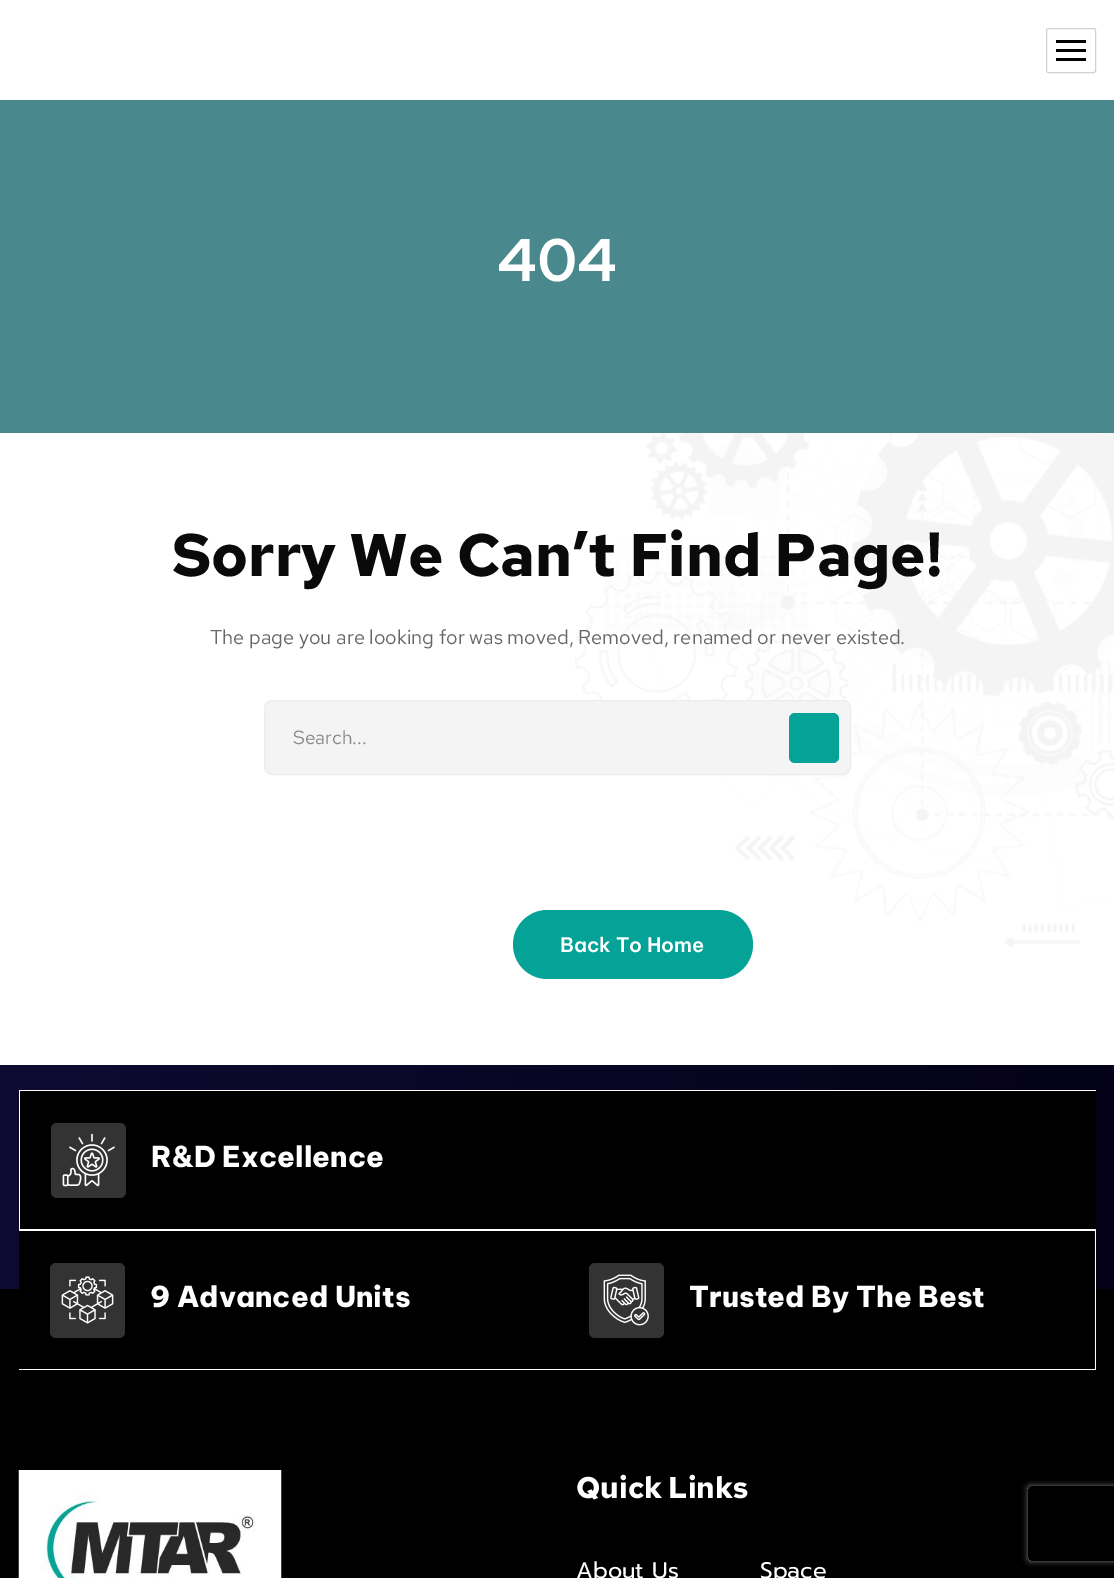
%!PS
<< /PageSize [1114 1578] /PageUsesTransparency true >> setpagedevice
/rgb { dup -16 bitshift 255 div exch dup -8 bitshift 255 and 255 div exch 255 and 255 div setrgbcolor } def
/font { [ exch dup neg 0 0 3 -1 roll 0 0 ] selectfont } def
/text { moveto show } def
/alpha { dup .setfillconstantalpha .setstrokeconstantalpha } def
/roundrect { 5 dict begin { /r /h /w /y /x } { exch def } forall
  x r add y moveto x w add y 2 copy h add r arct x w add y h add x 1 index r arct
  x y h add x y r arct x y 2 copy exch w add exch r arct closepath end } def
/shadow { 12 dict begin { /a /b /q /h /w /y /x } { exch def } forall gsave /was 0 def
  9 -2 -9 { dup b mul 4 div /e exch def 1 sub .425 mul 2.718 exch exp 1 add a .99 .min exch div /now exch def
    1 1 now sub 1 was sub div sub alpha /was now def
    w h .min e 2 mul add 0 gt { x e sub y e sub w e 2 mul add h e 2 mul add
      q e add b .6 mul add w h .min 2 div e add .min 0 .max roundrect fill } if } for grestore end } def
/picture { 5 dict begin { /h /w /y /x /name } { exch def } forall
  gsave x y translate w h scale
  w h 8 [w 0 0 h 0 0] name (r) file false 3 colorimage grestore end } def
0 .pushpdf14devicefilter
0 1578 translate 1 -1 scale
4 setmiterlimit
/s1 { /RedHatText-SemiBold 60 font 16#FFFFFF rgb } def
/s2 { /RedHatText-Bold 60 font 16#0A0A0A rgb } def
/s3 { /RedHatText-Regular 20 font 16#666666 rgb } def
/s4 { /RedHatText-Regular 19 font 16#888888 rgb } def
/s5 { /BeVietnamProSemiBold-SemiBold 20 font 16#FFFFFF rgb } def
/s6 { /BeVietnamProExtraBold-ExtraBold 28.75 font 16#FFFFFF rgb } def
/s7 { /RedHatText-Bold 30 font 16#FFFFFF rgb } def
/s8 { /Prompt-Regular 22.5 font 16#FFFFFF rgb } def
16#FFFFFF rgb
0 0 1114 1578 rectfill
16#D1D1D1 rgb
1046.5 28.5 49 44 2 roundrect stroke
16#000000 rgb
1056 40 30 3 rectfill
1056 49 30 3 rectfill
1056 58 30 3 rectfill
16#49898E rgb
0 100 1114 333 rectfill
s1
(404) 497 281 text
(pic1.raw) 575 433 539 514 picture
s2
(Sorry We Can’t Find Page!) 172 576 text
s3
(The page you are looking for was moved, Removed, renamed or never existed.) 210 644 text
16#F4F4F4 rgb
264.5 700.5 586 74 7.5 roundrect gsave fill grestore
16#ECECEC rgb
stroke
s4
(Search...) 293 744 text
16#05A297 rgb
789 713 50 50 6 roundrect fill
513 910 240 69 34.5 roundrect fill
s5
(Back To Home) 560 952 text
gsave 0 1065 moveto 1114 1065 lineto 1114 1289 lineto 0 1289 lineto closepath clip newpath
<< /ShadingType 2 /ColorSpace /DeviceRGB /Coords [0 1177 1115 1177] /Extend [true true] /Function << /FunctionType 2 /Domain [0 1] /C0 [0.055 0.039 0.196] /C1 [0.016 0.008 0.094] /N 1 >> >> shfill grestore
16#000000 rgb
20 1091 1076 138 rectfill
16#FFFFFF rgb
19 1090 1077 1 rectfill
19 1229 1077 1 rectfill
19 1090 1 140 rectfill
16#333333 rgb
51 1123 75 75 6 roundrect fill
(pic2.raw) 62 1133 53 54 picture
s6
(R&D Excellence) 151 1167 text
16#000000 rgb
19 1231 1076 58 rectfill
16#FFFFFF rgb
19 1230 1077 1 rectfill
16#000000 rgb
0 1289 1114 289 rectfill
16#FFFFFF rgb
19 1369 539 1 rectfill
16#333333 rgb
50 1263 75 75 6 roundrect fill
(pic3.raw) 61 1276 53 48 picture
s6
(9 Advanced Units) 150 1307 text
1095 1230 1 140 rectfill
558 1369 538 1 rectfill
16#333333 rgb
589 1263 75 75 6 roundrect fill
(pic4.raw) 603 1274 46 52 picture
s6
(Trusted By The Best) 689 1307 text
(pic5.raw) 18 1470 264 108 picture
s7
(Quick Links) 576 1498 text
s8
(About Us) 576 1578 text
(Space) 760 1578 text
gsave
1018 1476 moveto 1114 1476 lineto 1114 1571 lineto 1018 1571 lineto closepath 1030.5 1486 moveto 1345.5 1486 lineto 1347 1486 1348 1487 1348 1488.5 curveto 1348 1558.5 lineto 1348 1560 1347 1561 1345.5 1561 curveto 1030.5 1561 lineto 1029 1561 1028 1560 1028 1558.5 curveto 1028 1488.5 lineto 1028 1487 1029 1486 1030.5 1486 curveto closepath eoclip newpath
16#808080 rgb
1028 1486 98 75 2.5 3 1 shadow
grestore
.poppdf14devicefilter showpage
